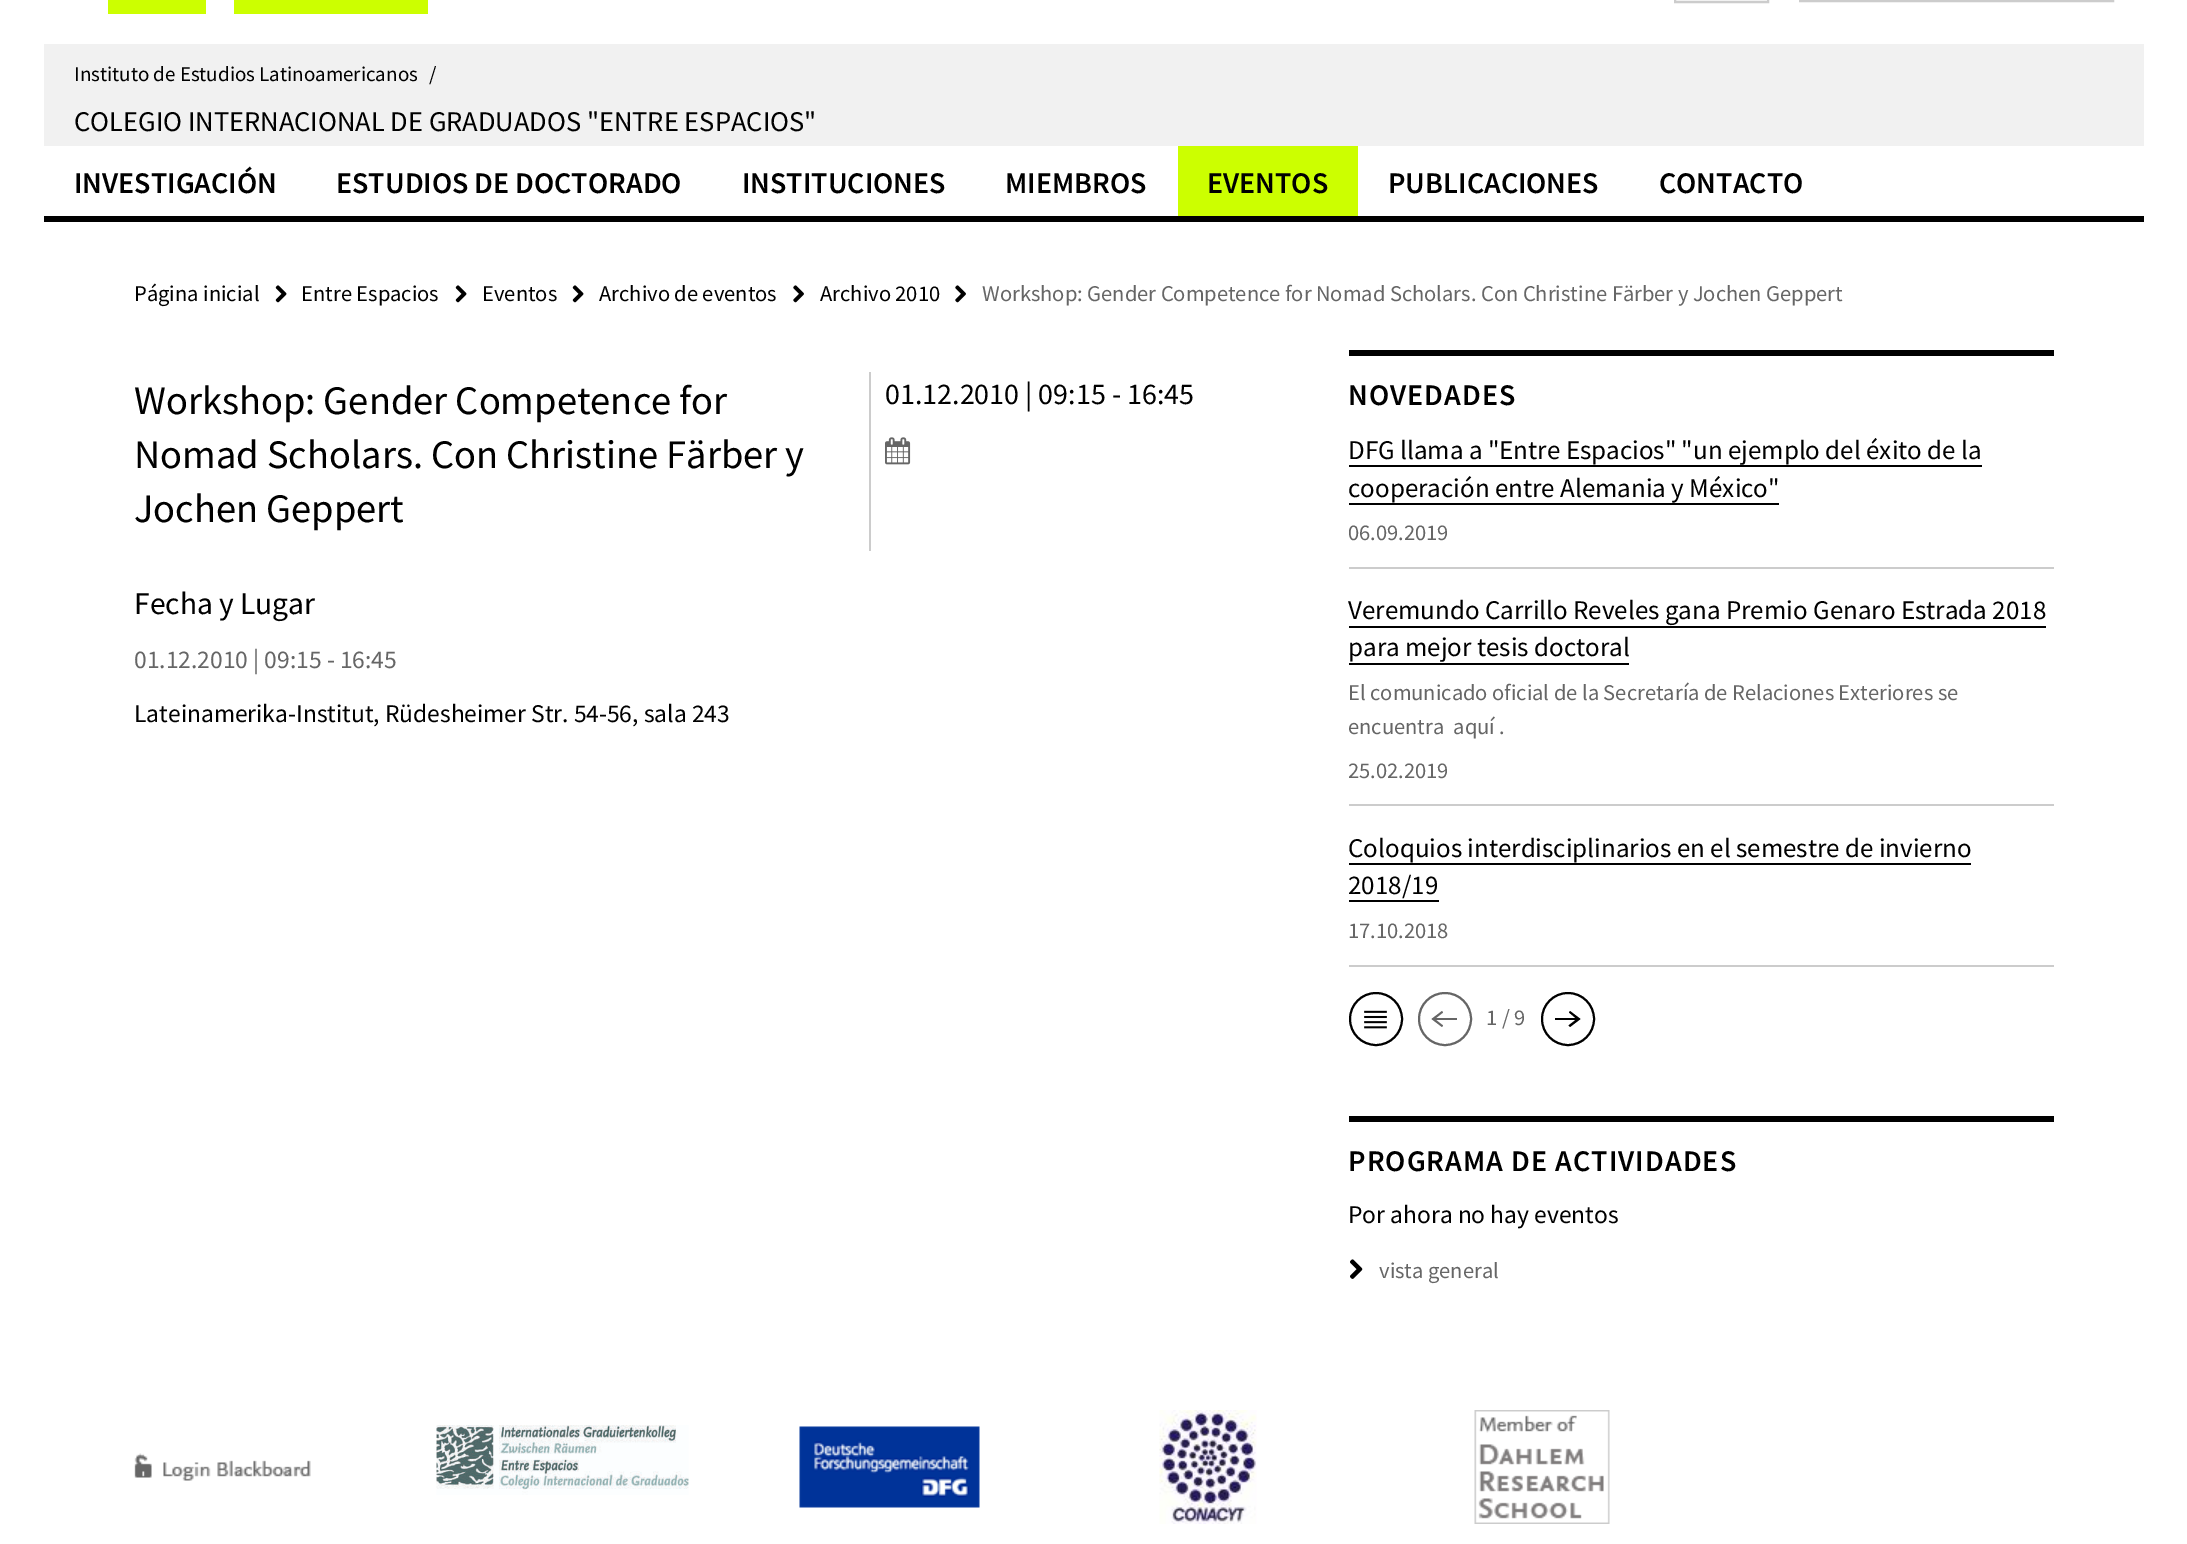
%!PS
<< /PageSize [2187 1544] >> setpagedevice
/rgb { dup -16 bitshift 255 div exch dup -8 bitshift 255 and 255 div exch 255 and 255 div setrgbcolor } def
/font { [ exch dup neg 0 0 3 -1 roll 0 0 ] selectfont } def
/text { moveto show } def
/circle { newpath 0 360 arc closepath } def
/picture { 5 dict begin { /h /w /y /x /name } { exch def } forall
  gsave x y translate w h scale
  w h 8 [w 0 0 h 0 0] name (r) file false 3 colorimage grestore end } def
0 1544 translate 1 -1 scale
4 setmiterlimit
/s1 { /SourceSansPro-Regular 21 font 16#000000 rgb } def
/s2 { /SourceSansPro-Regular 28.5 font 16#000000 rgb } def
/s3 { /SourceSansPro-SemiBold 30 font 16#000000 rgb } def
/s4 { /SourceSansPro-Regular 22.5 font 16#000000 rgb } def
/s5 { /SourceSansPro-Regular 22.5 font 16#666666 rgb } def
/s6 { /SourceSansPro-Regular 40.5 font 16#000000 rgb } def
/s7 { /SourceSansPro-Regular 30 font 16#000000 rgb } def
/s8 { /SourceSansPro-Regular 31.5 font 16#000000 rgb } def
/s9 { /SourceSansPro-Regular 25.5 font 16#666666 rgb } def
/s10 { /SourceSansPro-Regular 25.5 font 16#000000 rgb } def
/s11 { /SourceSansPro-Regular 27 font 16#000000 rgb } def
16#FFFFFF rgb
0 0 2187 1544 rectfill
(pic1.raw) 108 0 320 14 picture
16#CCCCCC rgb
2 setlinewidth
1675 -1 93 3 rectstroke
1800 -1 313 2 rectstroke
16#F1F1F1 rgb
44 44 2100 102 rectfill
s1
(Instituto de Estudios Latinoamericanos) 74 81 text
(/) 429 81 text
s2
(COLEGIO INTERNACIONAL DE GRADUADOS "ENTRE ESPACIOS") 74 131 text
44 216 2100 6 rectfill
s3
(INVESTIGACIÓN) 74 193 text
(ESTUDIOS DE DOCTORADO) 336 193 text
(INSTITUCIONES) 742 193 text
(MIEMBROS) 1005 193 text
16#CCFF00 rgb
1178 146 180 70 rectfill
s3
(EVENTOS) 1207 193 text
(PUBLICACIONES) 1388 193 text
(CONTACTO) 1659 193 text
s4
(Página inicial) 134 301 text
(pic2.raw) 275 285 12 18 picture
(Entre Espacios) 301 301 text
(pic2.raw) 455 285 12 18 picture
(Eventos) 482 301 text
(pic2.raw) 572 285 12 18 picture
(Archivo de eventos) 599 301 text
(pic3.raw) 793 285 11 18 picture
(Archivo 2010) 820 301 text
(pic3.raw) 955 285 11 18 picture
s5
(Workshop: Gender Competence for Nomad Scholars. Con Christine Färber y Jochen Geppert) 982 301 text
16#CCCCCC rgb
869 372 2 179 rectfill
s6
(Workshop: Gender Competence for) 134 414 text
(Nomad Scholars. Con Christine Färber y) 134 468 text
(Jochen Geppert) 134 522 text
s7
(01.12.2010 | 09:15 - 16:45) 885 404 text
(pic4.raw) 885 437 26 28 picture
s8
(Fecha y Lugar) 134 614 text
s9
(01.12.2010 | 09:15 - 16:45) 134 668 text
s10
(Lateinamerika-Institut, Rüdesheimer Str. 54-56, sala 243) 134 722 text
1349 350 705 6 rectfill
/SourceSansPro-SemiBold 30 font
1348 405 moveto 1.05 0 (NOVEDADES) ashow
16#CCCCCC rgb
1349 567 705 2 rectfill
s11
(DFG llama a "Entre Espacios" "un ejemplo del éxito de la) 1348 459 text
1349 465 633 2 rectfill
(cooperación entre Alemania y México") 1348 497 text
1349 503 430 2 rectfill
s5
(06.09.2019) 1348 540 text
16#CCCCCC rgb
1349 804 705 2 rectfill
s11
(Veremundo Carrillo Reveles gana Premio Genaro Estrada 2018) 1348 619 text
1349 626 697 2 rectfill
(para mejor tesis doctoral) 1348 656 text
1349 663 280 2 rectfill
s5
(El comunicado oficial de la Secretaría de Relaciones Exteriores se) 1348 700 text
(encuentra  aquí .) 1348 734 text
(25.02.2019) 1348 778 text
16#CCCCCC rgb
1349 965 705 2 rectfill
s11
(Coloquios interdisciplinarios en el semestre de invierno) 1348 857 text
1349 863 622 2 rectfill
(2018/19) 1348 894 text
1349 900 90 2 rectfill
s5
(17.10.2018) 1348 938 text
16#000000 rgb
1376 1019 26 circle stroke
(pic5.raw) 1364 1010 23 19 picture
16#666666 rgb
1445 1019 26 circle stroke
1457 1018 moveto 1436 1018 lineto 1443 1012.5 lineto 1442 1011 lineto 1431.5 1019 lineto 1442 1027 lineto 1443 1025.5 lineto 1436 1020 lineto 1457 1020 lineto closepath fill
(1 / 9) 1486 1025 text
16#000000 rgb
1568 1019 26 circle stroke
1570 1011 moveto 1569 1012.5 lineto 1575.5 1018 lineto 1555 1018 lineto 1555 1020 lineto 1575.5 1020 lineto 1568.5 1025.5 lineto 1570 1027 lineto 1580.5 1019 lineto closepath fill
1349 1116 705 6 rectfill
/SourceSansPro-SemiBold 30 font
1348 1171 moveto 1.05 0 (PROGRAMA DE ACTIVIDADES) ashow
s10
(Por ahora no hay eventos) 1348 1223 text
(pic6.raw) 1350 1259 13 20 picture
s5
(vista general) 1379 1278 text
(pic7.raw) 134 1453 177 28 picture
(pic8.raw) 436 1425 253 70 picture
(pic9.raw) 799 1426 181 82 picture
(pic10.raw) 1159 1410 98 114 picture
(pic11.raw) 1474 1410 136 114 picture
showpage
